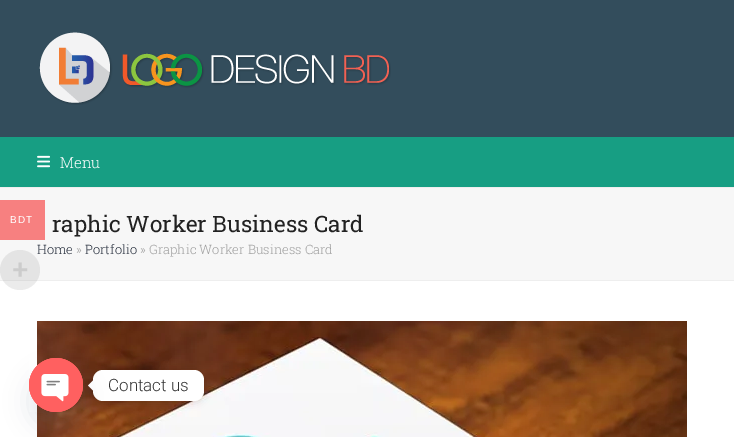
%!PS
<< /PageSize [734 437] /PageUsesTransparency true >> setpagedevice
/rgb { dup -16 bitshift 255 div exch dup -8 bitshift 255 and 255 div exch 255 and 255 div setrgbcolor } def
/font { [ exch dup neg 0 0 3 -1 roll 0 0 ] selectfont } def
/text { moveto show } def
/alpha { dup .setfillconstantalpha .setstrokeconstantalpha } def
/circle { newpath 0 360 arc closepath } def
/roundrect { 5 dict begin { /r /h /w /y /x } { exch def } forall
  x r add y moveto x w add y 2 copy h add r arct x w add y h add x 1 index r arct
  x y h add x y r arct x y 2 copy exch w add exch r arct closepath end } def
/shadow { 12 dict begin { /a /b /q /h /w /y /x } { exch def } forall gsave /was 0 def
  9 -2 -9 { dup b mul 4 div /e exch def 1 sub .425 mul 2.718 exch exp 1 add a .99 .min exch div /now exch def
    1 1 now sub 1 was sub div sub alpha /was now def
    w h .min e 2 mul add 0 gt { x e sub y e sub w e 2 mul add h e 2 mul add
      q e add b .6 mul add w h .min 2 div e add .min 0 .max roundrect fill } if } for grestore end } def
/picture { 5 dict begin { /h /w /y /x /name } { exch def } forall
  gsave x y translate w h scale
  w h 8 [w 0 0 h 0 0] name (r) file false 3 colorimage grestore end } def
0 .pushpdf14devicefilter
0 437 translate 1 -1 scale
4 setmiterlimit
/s1 { /RobotoSlab-Light 12.9 font 16#252D3B rgb } def
/s2 { /LiberationSans-Bold 28 font 16#CCCCCC rgb } def
/s3 { /RobotoSlab-Light 15 font 16#FFFFFF rgb } def
/s4 { /RobotoSlab-Regular 22.6 font 16#222222 rgb } def
/s5 { /RobotoSlab-Light 12.9 font 16#9E9E9E rgb } def
/s6 { /Roboto-Light 17 font 16#333333 rgb } def
16#FFFFFF rgb
0 0 734 437 rectfill
16#F7F7F7 rgb
0 188 734 92 rectfill
16#F78080 rgb
0 200 45 40 rectfill
/LiberationSans-Regular 10 font
16#FFFFFF rgb
10 223 moveto 1 0 (BDT) ashow
16#EEEEEE rgb
0 280 734 1 rectfill
s1
(Home) 37 254 text
0.2 alpha
16#999999 rgb
20 270 20 circle fill
1 alpha
s2
(+) 12 279 text
16#334D5C rgb
0 0 734 137 rectfill
(pic1.raw) 39 32 352 73 picture
16#179E83 rgb
0 137 734 50 rectfill
(pic2.raw) 37 155 13 13 picture
s3
(Menu) 60 168 text
16#EEEEEE rgb
0 187 734 1 rectfill
s4
(raphic Worker Business Card) 52 232 text
s5
(») 76 254 text
s1
(Portfolio) 85 254 text
s5
(» Graphic Worker Business Card) 140 254 text
(pic3.raw) 37 321 650 116 picture
16#000000 rgb
93 371 111 31 10 4 0.15 shadow
16#FFFFFF rgb
93 370 111 31 10 roundrect fill
93 380.5 moveto 93 390.5 lineto 88 385.5 lineto closepath fill
16#49687E rgb
29 374 54 54 27 12 0.16 shadow
(pic4.raw) 29 358 54 54 picture
s6
(Contact us) 108 391 text
.poppdf14devicefilter showpage
